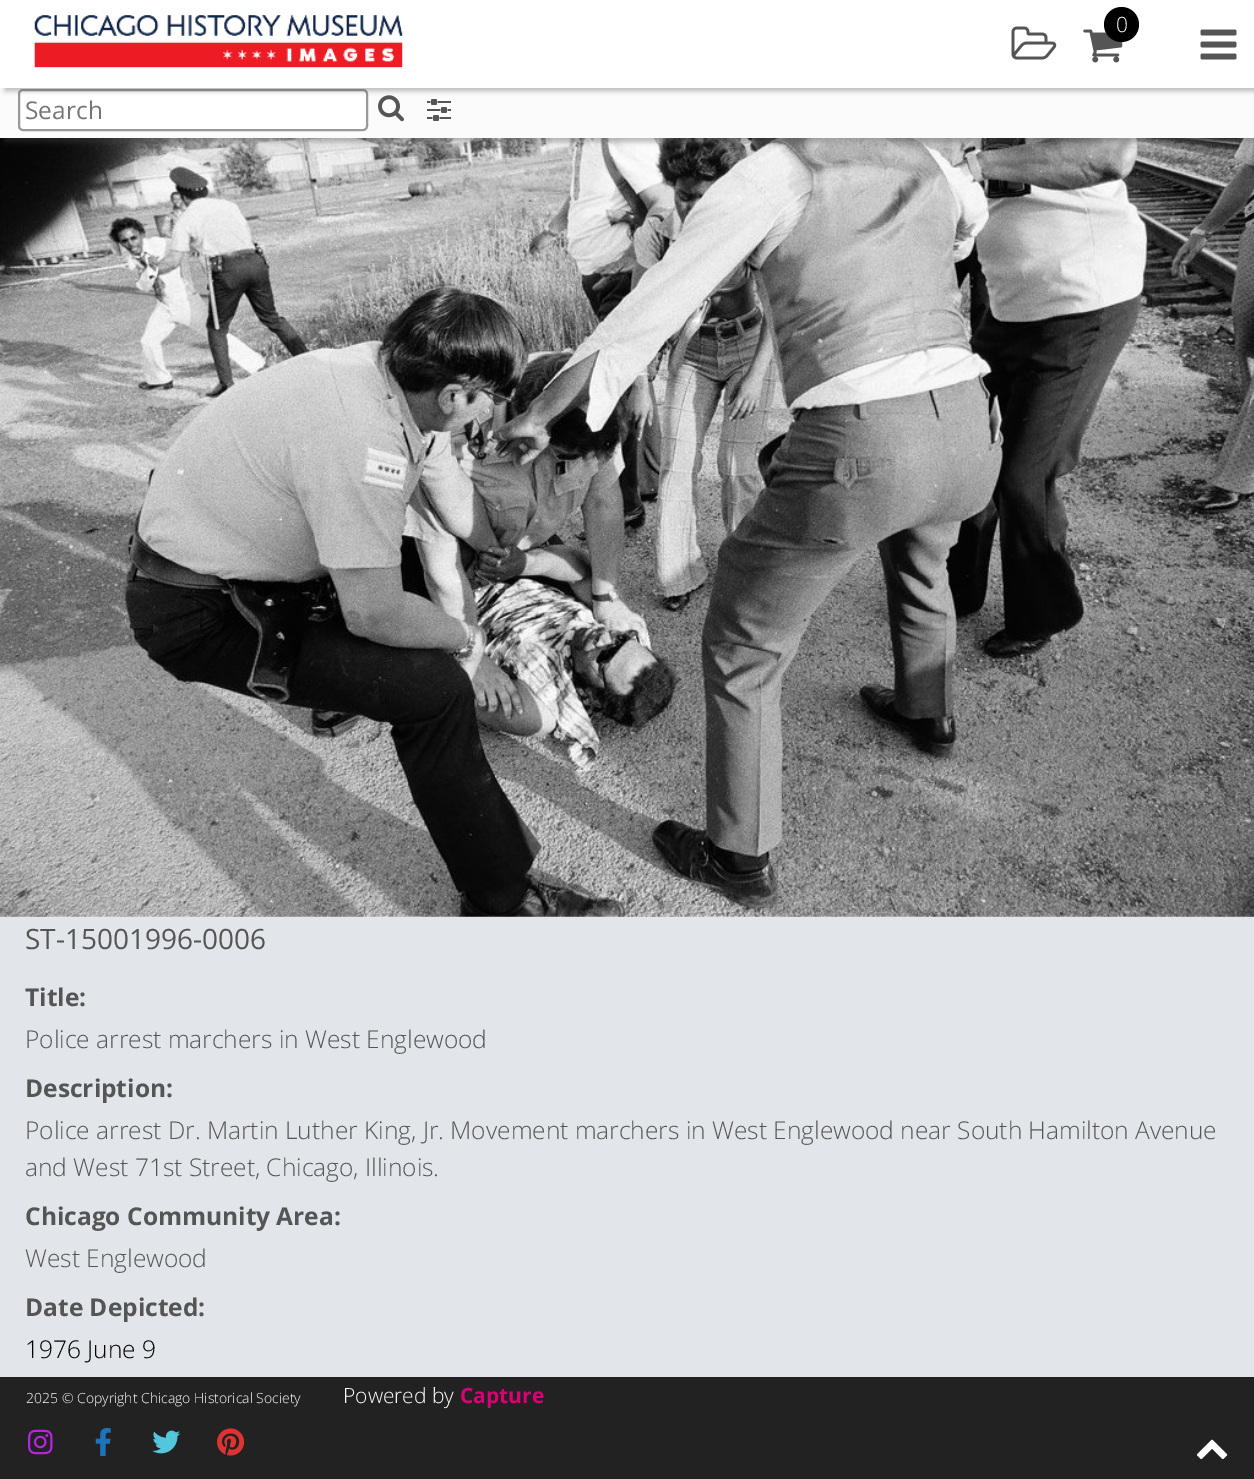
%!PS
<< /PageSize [1254 1479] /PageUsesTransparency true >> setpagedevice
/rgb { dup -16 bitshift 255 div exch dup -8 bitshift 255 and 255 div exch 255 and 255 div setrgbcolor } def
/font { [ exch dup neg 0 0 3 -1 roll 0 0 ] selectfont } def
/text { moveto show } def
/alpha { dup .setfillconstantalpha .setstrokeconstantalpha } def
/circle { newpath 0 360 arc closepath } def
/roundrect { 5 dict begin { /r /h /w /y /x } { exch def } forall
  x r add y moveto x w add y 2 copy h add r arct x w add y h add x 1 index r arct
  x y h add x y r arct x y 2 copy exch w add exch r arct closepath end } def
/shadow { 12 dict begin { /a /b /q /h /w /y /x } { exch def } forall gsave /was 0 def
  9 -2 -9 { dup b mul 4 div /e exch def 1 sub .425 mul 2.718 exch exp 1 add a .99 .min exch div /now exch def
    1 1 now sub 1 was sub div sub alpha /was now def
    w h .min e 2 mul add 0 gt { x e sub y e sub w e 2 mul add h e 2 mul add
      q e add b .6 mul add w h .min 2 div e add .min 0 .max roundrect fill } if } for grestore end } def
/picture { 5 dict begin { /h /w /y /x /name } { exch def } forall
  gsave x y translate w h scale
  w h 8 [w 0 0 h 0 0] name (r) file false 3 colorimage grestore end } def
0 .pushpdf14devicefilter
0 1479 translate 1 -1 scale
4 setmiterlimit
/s1 { /OpenSans-Light 21 font 16#FFFFFF rgb } def
/s2 { /OpenSans-Regular 24.5 font 16#757575 rgb } def
/s3 { /OpenSans-Regular 28 font 16#555555 rgb } def
/s4 { /OpenSans-Bold 24.5 font 16#555555 rgb } def
/s5 { /OpenSans-Light 24.5 font 16#555555 rgb } def
/s6 { /OpenSans-Light 24.5 font 16#000000 rgb } def
/s7 { /OpenSans-Light 14 font 16#FFFFFF rgb } def
/s8 { /OpenSans-Bold 21 font 16#DB0074 rgb } def
16#E2E5E9 rgb
0 0 1254 1479 rectfill
(pic7.raw) 0 138 1254 779 picture
16#4A4545 rgb
5 79 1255 63 0 2.5 0.35 shadow
16#FBFBFB rgb
0 88 1254 50 rectfill
16#FFFFFF rgb
19 90 348 40 4 roundrect gsave fill grestore
16#999999 rgb
2 setlinewidth
stroke
(pic5.raw) 378 95 26 27 picture
(pic6.raw) 427 99 24 22 picture
16#4A4545 rgb
5 4 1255 87 0 2.5 0.35 shadow
16#FFFFFF rgb
0 0 1254 88 rectfill
(pic1.raw) 33 15 370 53 picture
(pic2.raw) 1011 26 46 34 picture
(pic3.raw) 1083 29 40 34 picture
16#000000 rgb
1121.5 24.5 17.5 circle fill
s1
(0) 1116 32 text
(pic4.raw) 1200 29 37 31 picture
s2
(Search) 25 119 text
s3
(ST-15001996-0006) 25 949 text
s4
(Title:) 25 1006 text
s5
(Police arrest marchers in West Englewood) 25 1048 text
s4
(Description:) 25 1097 text
s5
(Police arrest Dr. Martin Luther King, Jr. Movement marchers in West Englewood near South Hamilton Avenue) 25 1139 text
(and West 71st Street, Chicago, Illinois.) 25 1176 text
s4
(Chicago Community Area:) 25 1225 text
s5
(West Englewood) 25 1267 text
s4
(Date Depicted:) 25 1316 text
s6
(1976 June 9) 25 1358 text
16#222222 rgb
0 1377 1254 102 rectfill
s7
(2025 © Copyright Chicago Historical Society) 26 1403 text
s1
(Powered by) 343 1403 text
s8
(Capture) 460 1403 text
(pic8.raw) 28 1429 25 26 picture
(pic9.raw) 95 1428 16 28 picture
(pic10.raw) 152 1430 29 24 picture
(pic11.raw) 217 1428 28 28 picture
(pic12.raw) 1197 1439 31 21 picture
.poppdf14devicefilter showpage
